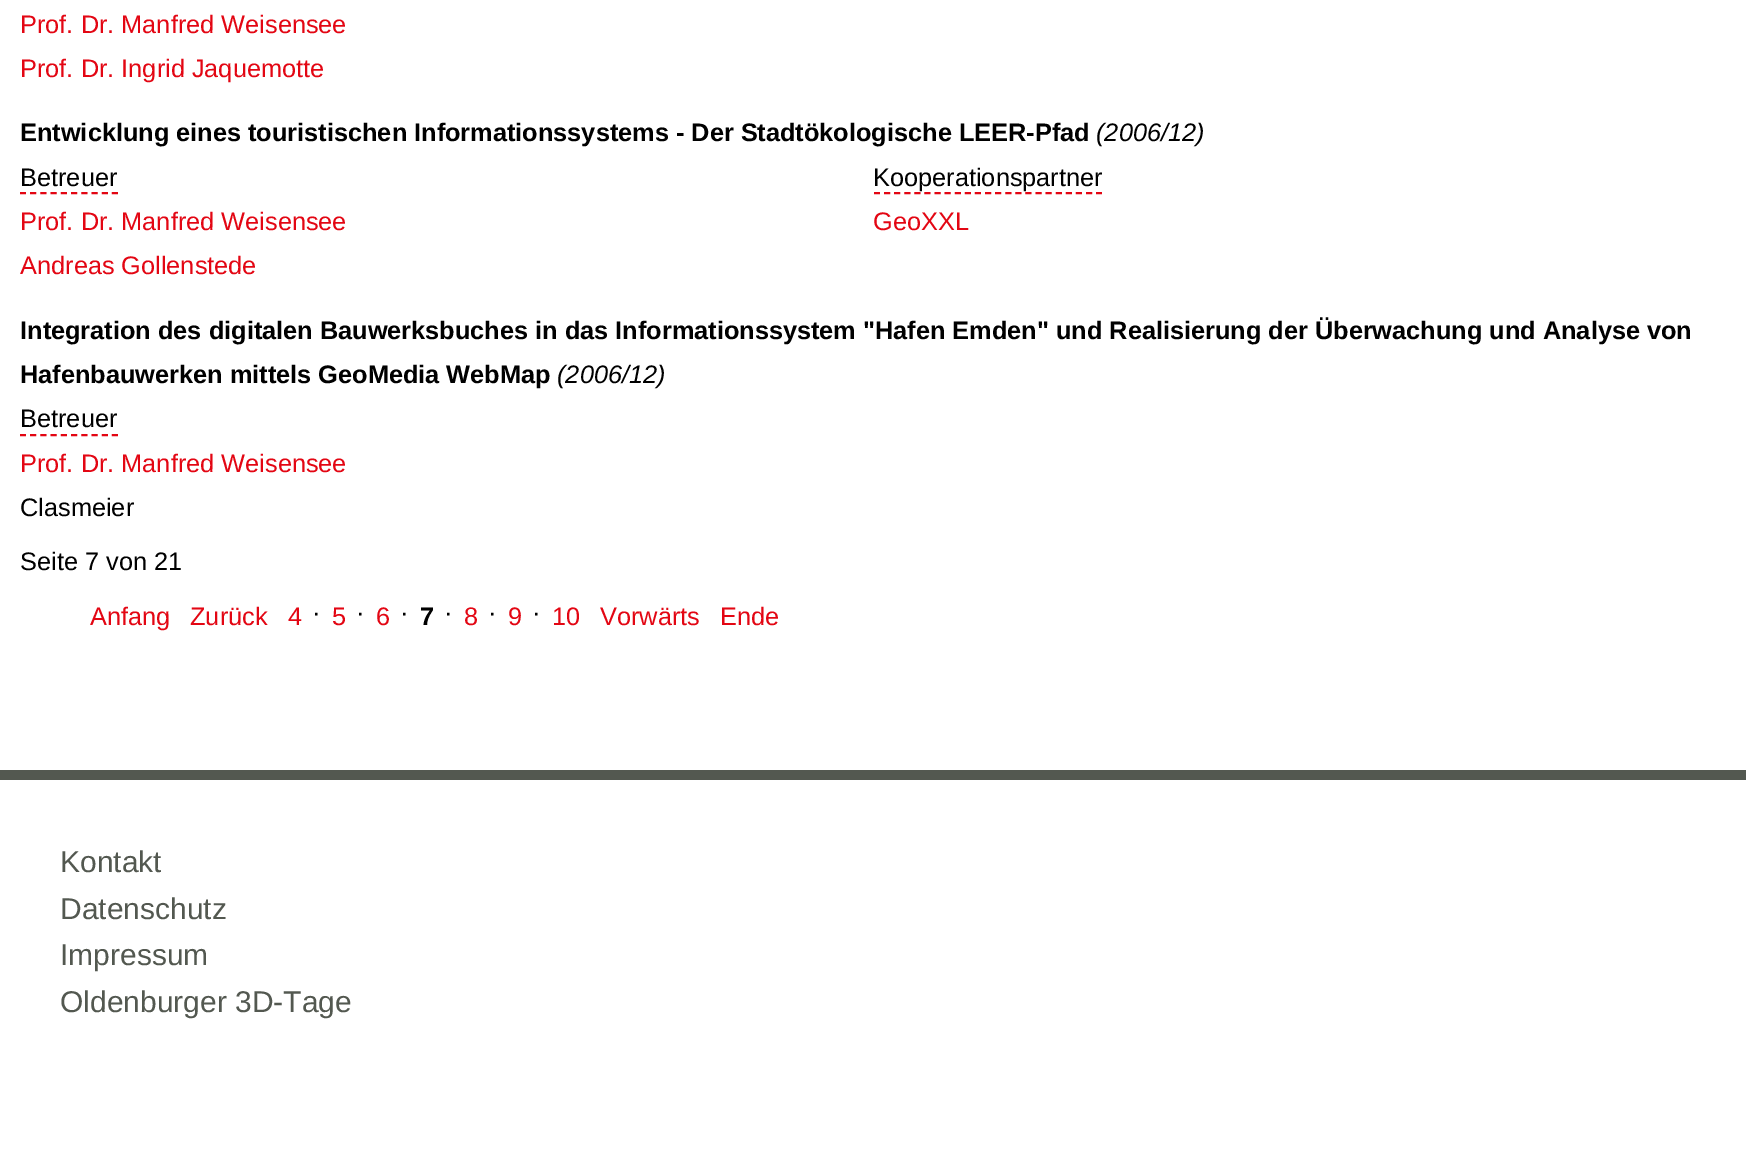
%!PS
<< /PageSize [1746 1161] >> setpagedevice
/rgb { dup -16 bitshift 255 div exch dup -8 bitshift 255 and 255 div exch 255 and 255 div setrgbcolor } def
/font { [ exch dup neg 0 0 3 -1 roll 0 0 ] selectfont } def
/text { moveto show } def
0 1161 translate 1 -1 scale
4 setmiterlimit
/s1 { /LiberationSans-Regular 25.33 font 16#E30613 rgb } def
/s2 { /LiberationSans-Bold 25.33 font 16#000000 rgb } def
/s3 { /LiberationSans-Italic 25.33 font 16#000000 rgb } def
/s4 { /LiberationSans-Regular 25.33 font 16#000000 rgb } def
/s5 { /LiberationSans-Regular 30 font 16#535850 rgb } def
16#FFFFFF rgb
0 0 1746 1161 rectfill
s1
(Prof. Dr. Manfred Weisensee) 20 33 text
(Prof. Dr. Ingrid Jaquemotte) 20 77 text
s2
(Entwicklung eines touristischen Informationssystems - Der Stadtökologische LEER-Pfad) 20 141 text
s3
(\(2006/12\)) 1096 141 text
s4
(Betreuer) 20 186 text
16#E30613 rgb
2 setlinewidth
[6 4.22] 0 setdash
20 193 moveto 118 193 lineto stroke
(Prof. Dr. Manfred Weisensee) 20 230 text
(Andreas Gollenstede) 20 274 text
s4
(Kooperationspartner) 873 186 text
16#E30613 rgb
[6 4.1] 0 setdash
874 193 moveto 1102 193 lineto stroke
(GeoXXL) 873 230 text
s2
(Integration des digitalen Bauwerksbuches in das Informationssystem "Hafen Emden" und Realisierung der Überwachung und Analyse von) 20 339 text
(Hafenbauwerken mittels GeoMedia WebMap) 20 383 text
s3
(\(2006/12\)) 557 383 text
s4
(Betreuer) 20 427 text
16#E30613 rgb
[6 4.22] 0 setdash
20 435 moveto 118 435 lineto stroke
(Prof. Dr. Manfred Weisensee) 20 472 text
s4
(Clasmeier) 20 516 text
(Seite 7 von 21) 20 570 text
s1
(Anfang) 90 625 text
(Zurück) 190 625 text
(4) 288 625 text
s4
(·) 312 621 text
s1
(5) 332 625 text
s4
(·) 356 621 text
s1
(6) 376 625 text
s4
(·) 400 621 text
s2
(7) 420 625 text
s4
(·) 444 621 text
s1
(8) 464 625 text
s4
(·) 488 621 text
s1
(9) 508 625 text
s4
(·) 532 621 text
s1
(10) 552 625 text
(Vorwärts) 600 625 text
(Ende) 720 625 text
16#535850 rgb
0 770 1746 10 rectfill
s5
(Kontakt) 60 872 text
(Datenschutz) 60 919 text
(Impressum) 60 965 text
(Oldenburger 3D-Tage) 60 1012 text
showpage
